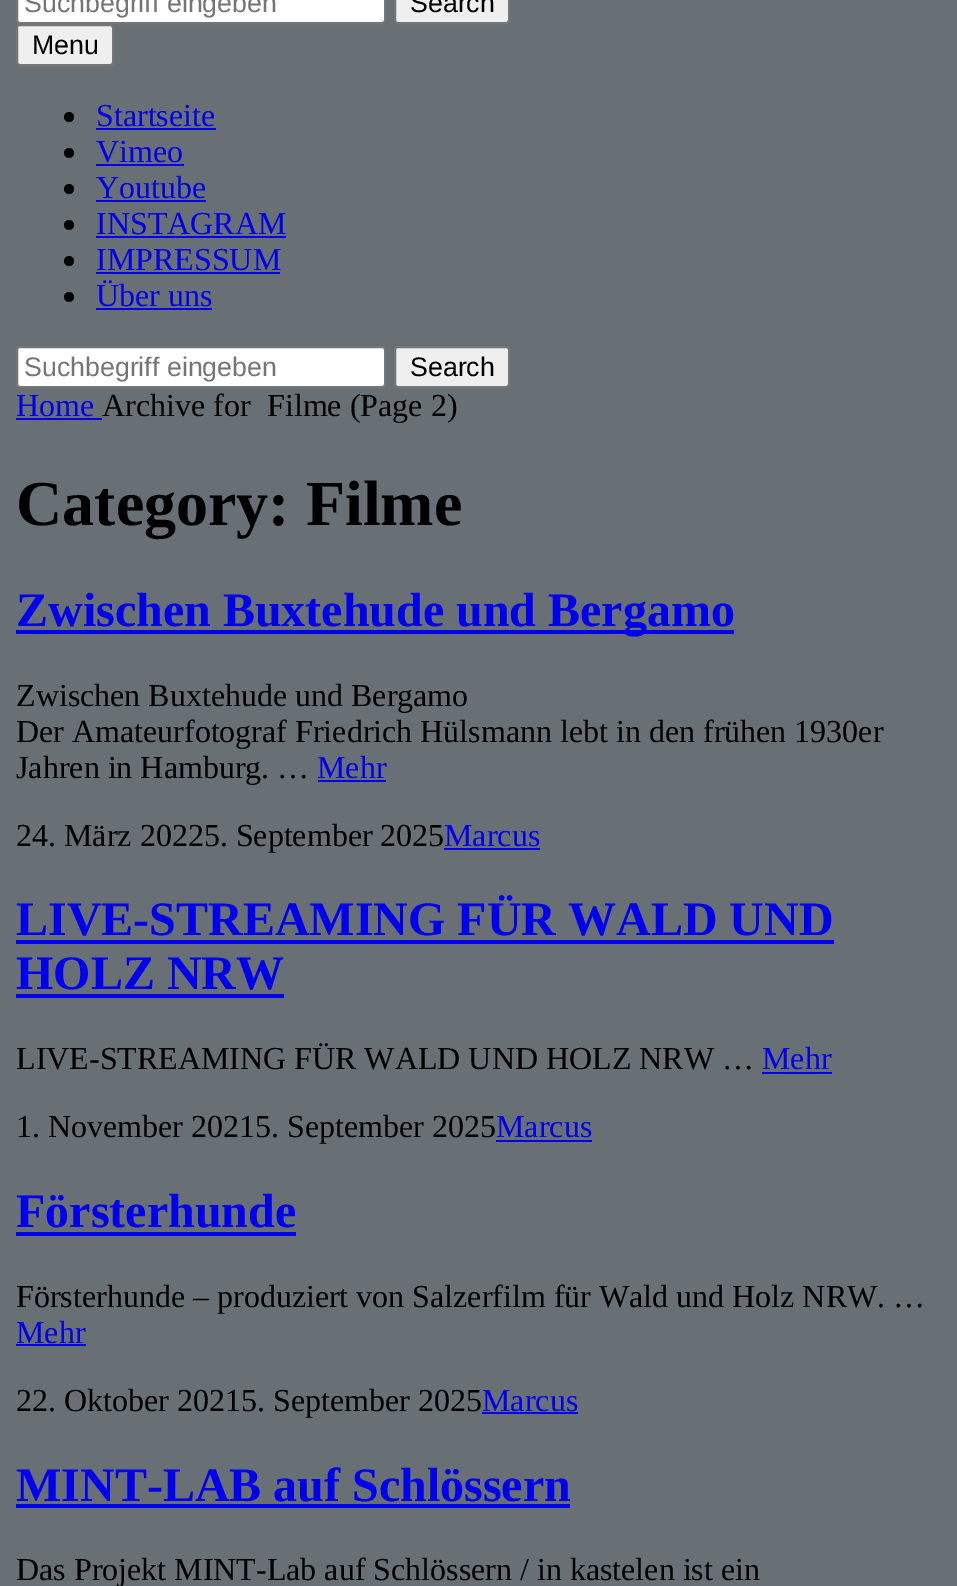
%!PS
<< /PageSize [957 1586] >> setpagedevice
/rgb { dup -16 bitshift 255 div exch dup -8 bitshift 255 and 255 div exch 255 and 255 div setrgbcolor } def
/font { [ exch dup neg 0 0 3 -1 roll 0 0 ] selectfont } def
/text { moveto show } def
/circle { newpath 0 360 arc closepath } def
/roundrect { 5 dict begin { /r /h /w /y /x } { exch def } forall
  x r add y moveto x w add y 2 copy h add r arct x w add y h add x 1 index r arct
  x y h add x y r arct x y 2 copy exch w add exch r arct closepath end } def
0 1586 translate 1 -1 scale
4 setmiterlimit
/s1 { /LiberationSans-Regular 26.75 font 16#757575 rgb } def
/s2 { /LiberationSans-Regular 26.75 font 16#000000 rgb } def
/s3 { /LiberationSerif-Regular 32 font 16#0000EE rgb } def
/s4 { /LiberationSerif-Regular 32 font 16#000000 rgb } def
/s5 { /LiberationSerif-Bold 64 font 16#000000 rgb } def
/s6 { /LiberationSerif-Bold 48 font 16#0000EE rgb } def
16#697075 rgb
0 0 957 1586 rectfill
16#FFFFFF rgb
17 -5 368 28 3 roundrect gsave fill grestore
16#767676 rgb
2 setlinewidth
stroke
s1
(Suchbegriff eingeben) 24 12 text
16#EFEFEF rgb
395 -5 114 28 3 roundrect gsave fill grestore
16#767676 rgb
stroke
s2
(Search) 410 12 text
16#EFEFEF rgb
17 25 96 40 3 roundrect gsave fill grestore
16#767676 rgb
stroke
s2
(Menu) 32 54 text
69 117 5 circle fill
s3
(Startseite) 96 126 text
96 128 120 2 rectfill
16#000000 rgb
69 153 5 circle fill
s3
(Vimeo) 96 162 text
96 164 88 2 rectfill
16#000000 rgb
69 189 5 circle fill
s3
(Youtube) 96 198 text
96 200 110 2 rectfill
16#000000 rgb
69 225 5 circle fill
s3
(INSTAGRAM) 96 234 text
96 236 190 2 rectfill
16#000000 rgb
69 261 5 circle fill
s3
(IMPRESSUM) 96 270 text
96 272 184 2 rectfill
16#000000 rgb
69 297 5 circle fill
s3
(Über uns) 96 306 text
96 308 116 2 rectfill
16#FFFFFF rgb
17 347 368 40 3 roundrect gsave fill grestore
16#767676 rgb
stroke
s1
(Suchbegriff eingeben) 24 376 text
16#EFEFEF rgb
395 347 114 40 3 roundrect gsave fill grestore
16#767676 rgb
stroke
s2
(Search) 410 376 text
s3
(Home) 16 416 text
16 418 86 2 rectfill
s4
(Archive for) 102 416 text
(Filme \(Page 2\)) 267 416 text
s5
(Category: Filme) 16 525 text
16#0000EE rgb
16 630 718 4 rectfill
s6
(Zwischen Buxtehude und Bergamo) 16 626 text
s4
(Zwischen Buxtehude und Bergamo) 16 706 text
(Der Amateurfotograf Friedrich Hülsmann lebt in den frühen 1930er) 16 742 text
(Jahren in Hamburg. …) 16 778 text
s3
(Mehr) 317 778 text
318 780 68 2 rectfill
s4
(24. März 20225. September 2025) 16 846 text
s3
(Marcus) 444 846 text
444 848 96 2 rectfill
s6
(LIVE-STREAMING FÜR WALD UND) 16 935 text
16 940 818 4 rectfill
(HOLZ NRW) 16 989 text
16 994 268 4 rectfill
s4
(LIVE-STREAMING FÜR WALD UND HOLZ NRW …) 16 1069 text
s3
(Mehr) 762 1069 text
762 1072 70 2 rectfill
s4
(1. November 20215. September 2025) 16 1137 text
s3
(Marcus) 496 1137 text
496 1140 96 2 rectfill
s6
(Försterhunde) 16 1227 text
16 1232 280 4 rectfill
s4
(Försterhunde – produziert von Salzerfilm für Wald und Holz NRW. …) 16 1307 text
s3
(Mehr) 16 1343 text
16 1344 70 2 rectfill
s4
(22. Oktober 20215. September 2025) 16 1411 text
s3
(Marcus) 482 1411 text
482 1412 96 2 rectfill
s6
(MINT-LAB auf Schlössern) 16 1501 text
16 1504 554 4 rectfill
s4
(Das Projekt MINT-Lab auf Schlössern / in kastelen ist ein) 16 1580 text
showpage
